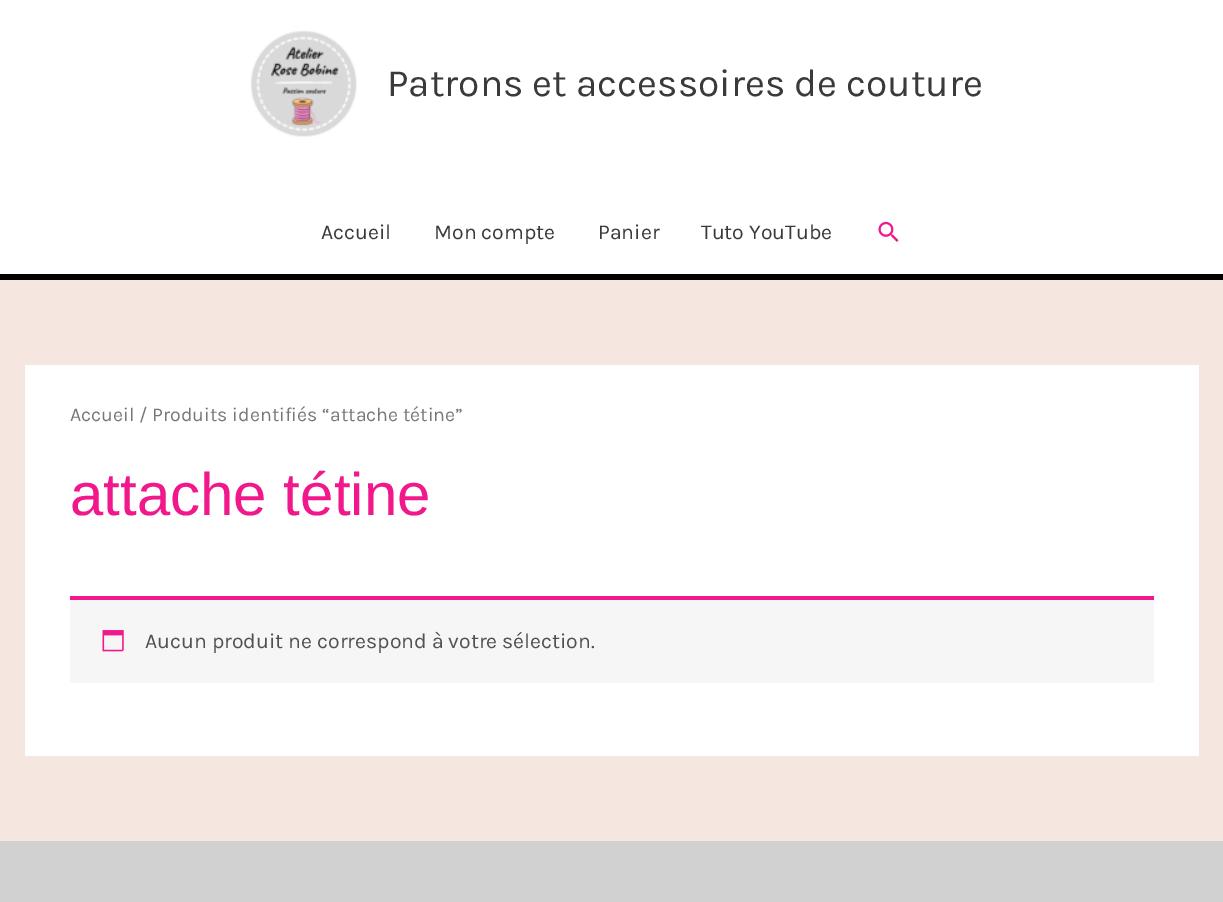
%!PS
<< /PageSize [1223 902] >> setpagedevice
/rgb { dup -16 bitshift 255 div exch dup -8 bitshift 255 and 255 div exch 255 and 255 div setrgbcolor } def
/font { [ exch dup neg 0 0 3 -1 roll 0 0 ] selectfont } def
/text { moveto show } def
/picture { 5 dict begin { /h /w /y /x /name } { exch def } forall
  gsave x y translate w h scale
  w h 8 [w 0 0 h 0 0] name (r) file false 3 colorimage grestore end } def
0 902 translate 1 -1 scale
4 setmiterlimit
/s1 { /Karla-Regular 38.75 font 16#3A3A3A rgb } def
/s2 { /Karla-Regular 21.25 font 16#3A3A3A rgb } def
/s3 { /Karla-Regular 19.55 font 16#777777 rgb } def
/s4 { /LiberationSans-Regular 60 font 16#F1188C rgb } def
/s5 { /Karla-Regular 21.25 font 16#515151 rgb } def
16#F5E7DF rgb
0 0 1223 902 rectfill
16#FFFFFF rgb
0 0 1223 274 rectfill
16#000000 rgb
0 274 1223 6 rectfill
(pic1.raw) 250 31 107 106 picture
s1
(Patrons et accessoires de couture) 387 96 text
s2
(Accueil) 321 239 text
(Mon compte) 434 239 text
(Panier) 598 239 text
(Tuto YouTube) 701 239 text
(pic2.raw) 878 221 21 21 picture
16#FFFFFF rgb
25 365 1174 391 rectfill
s3
(Accueil / Produits identifiés “attache tétine”) 70 421 text
s4
(attache tétine) 70 515 text
16#F7F6F7 rgb
70 600 1084 83 rectfill
16#F1188C rgb
70 596 1084 4 rectfill
(pic3.raw) 102 630 22 22 picture
s5
(Aucun produit ne correspond à votre sélection.) 145 648 text
16#D1D1D1 rgb
0 841 1223 61 rectfill
showpage
